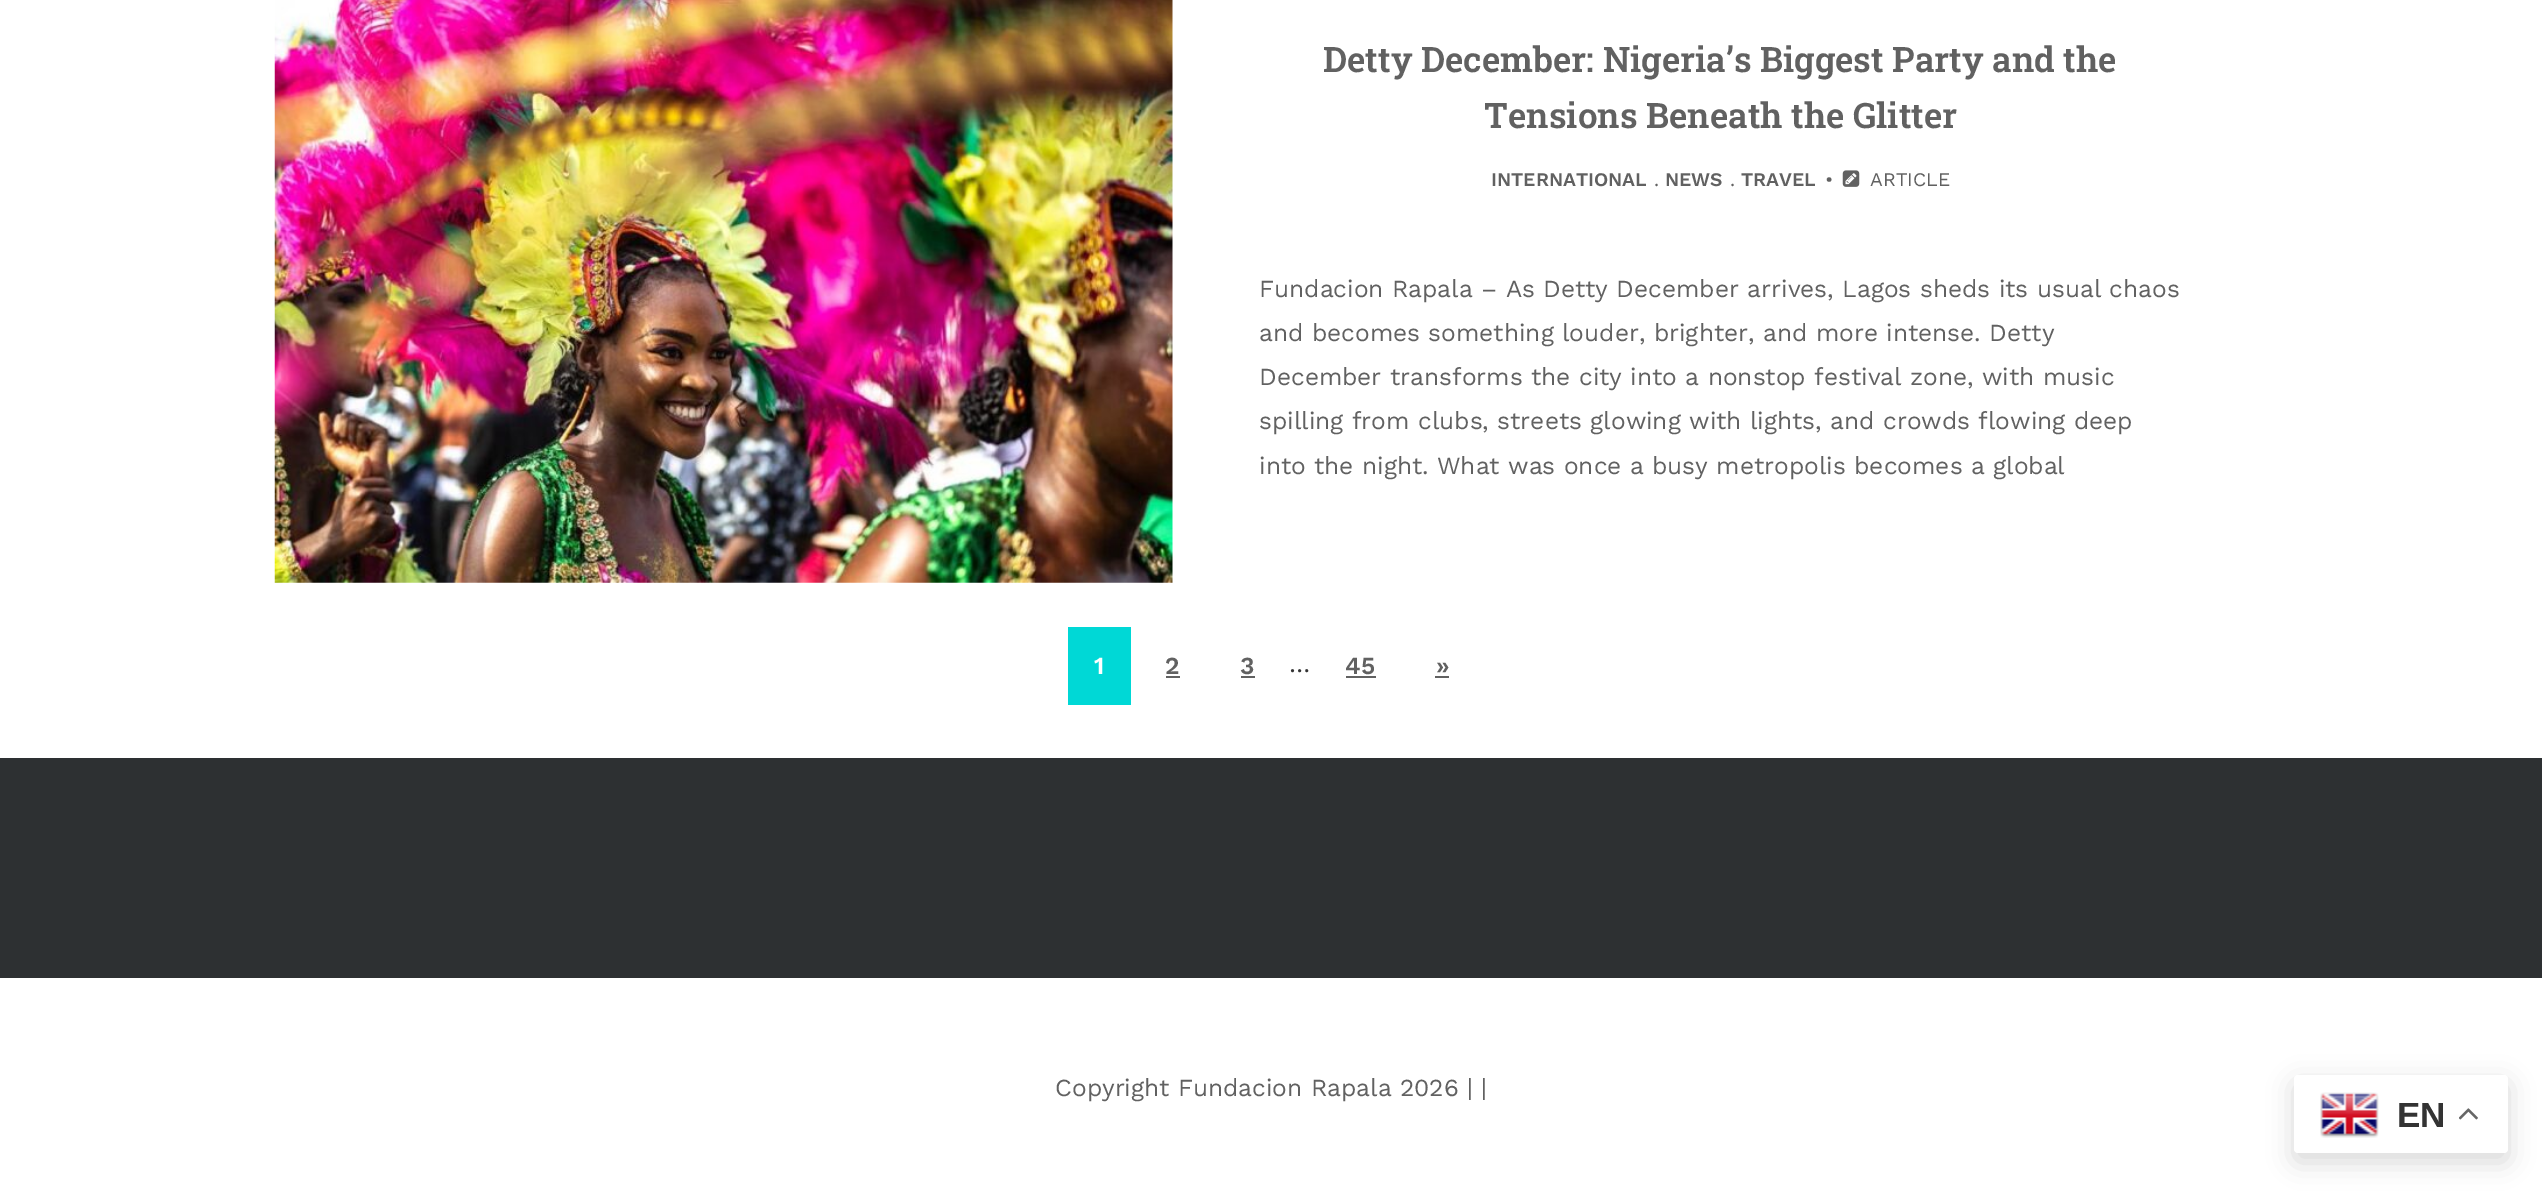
%!PS
<< /PageSize [2542 1197] /PageUsesTransparency true >> setpagedevice
/rgb { dup -16 bitshift 255 div exch dup -8 bitshift 255 and 255 div exch 255 and 255 div setrgbcolor } def
/font { [ exch dup neg 0 0 3 -1 roll 0 0 ] selectfont } def
/text { moveto show } def
/alpha { dup .setfillconstantalpha .setstrokeconstantalpha } def
/roundrect { 5 dict begin { /r /h /w /y /x } { exch def } forall
  x r add y moveto x w add y 2 copy h add r arct x w add y h add x 1 index r arct
  x y h add x y r arct x y 2 copy exch w add exch r arct closepath end } def
/shadow { 12 dict begin { /a /b /q /h /w /y /x } { exch def } forall gsave /was 0 def
  9 -2 -9 { dup b mul 4 div /e exch def 1 sub .425 mul 2.718 exch exp 1 add a .99 .min exch div /now exch def
    1 1 now sub 1 was sub div sub alpha /was now def
    w h .min e 2 mul add 0 gt { x e sub y e sub w e 2 mul add h e 2 mul add
      q e add b .6 mul add w h .min 2 div e add .min 0 .max roundrect fill } if } for grestore end } def
/picture { 5 dict begin { /h /w /y /x /name } { exch def } forall
  gsave x y translate w h scale
  w h 8 [w 0 0 h 0 0] name (r) file false 3 colorimage grestore end } def
0 .pushpdf14devicefilter
0 1197 translate 1 -1 scale
4 setmiterlimit
/s1 { /RobotoSlab-SemiBold 35 font 16#616161 rgb } def
/s2 { /WorkSans-SemiBold 19.25 font 16#616161 rgb } def
/s3 { /WorkSans-Regular 19.25 font 16#616161 rgb } def
/s4 { /WorkSans-Regular 24.5 font 16#616161 rgb } def
/s5 { /WorkSans-SemiBold 24.5 font 16#FFFFFF rgb } def
/s6 { /WorkSans-SemiBold 24.5 font 16#616161 rgb } def
/s7 { /WorkSans-Regular 24.5 font 16#333333 rgb } def
/s8 { /LiberationSans-Bold 35 font 16#333333 rgb } def
16#FFFFFF rgb
0 0 2542 1197 rectfill
(pic1.raw) 274 0 899 583 picture
s1
(Detty December: Nigeria’s Biggest Party and the) 1323 72 text
(Tensions Beneath the Glitter) 1484 128 text
s2
(INTERNATIONAL) 1491 186 text
s3
(.) 1654 186 text
s2
(NEWS) 1665 186 text
s3
(.) 1730 186 text
s2
(TRAVEL) 1741 186 text
s3
(•) 1825 186 text
(pic2.raw) 1842 170 18 17 picture
(ARTICLE) 1870 186 text
s4
(Fundacion Rapala – As Detty December arrives, Lagos sheds its usual chaos) 1259 297 text
(and becomes something louder, brighter, and more intense. Detty) 1259 341 text
(December transforms the city into a nonstop festival zone, with music) 1259 385 text
(spilling from clubs, streets glowing with lights, and crowds flowing deep) 1259 429 text
(into the night. What was once a busy metropolis becomes a global) 1259 474 text
16#00D8D6 rgb
1068 627 63 78 rectfill
s5
(1) 1094 674 text
s6
(2) 1165 674 text
1166 676 14 2 rectfill
(3) 1240 674 text
1241 676 14 2 rectfill
s7
(…) 1289 672 text
s6
(45) 1345 674 text
1346 676 30 2 rectfill
(») 1436 674 text
1435 676 14 2 rectfill
16#2D3032 rgb
0 758 2542 220 rectfill
s4
(Copyright Fundacion Rapala 2026 | |) 1055 1096 text
16#000000 rgb
2294 1083 214 79 4 13 0.15 shadow
16#FFFFFF rgb
2294 1075 214 78 4 roundrect fill
(pic3.raw) 2320 1092 59 46 picture
s8
(EN) 2397 1127 text
(pic4.raw) 2459 1108 19 12 picture
.poppdf14devicefilter showpage
